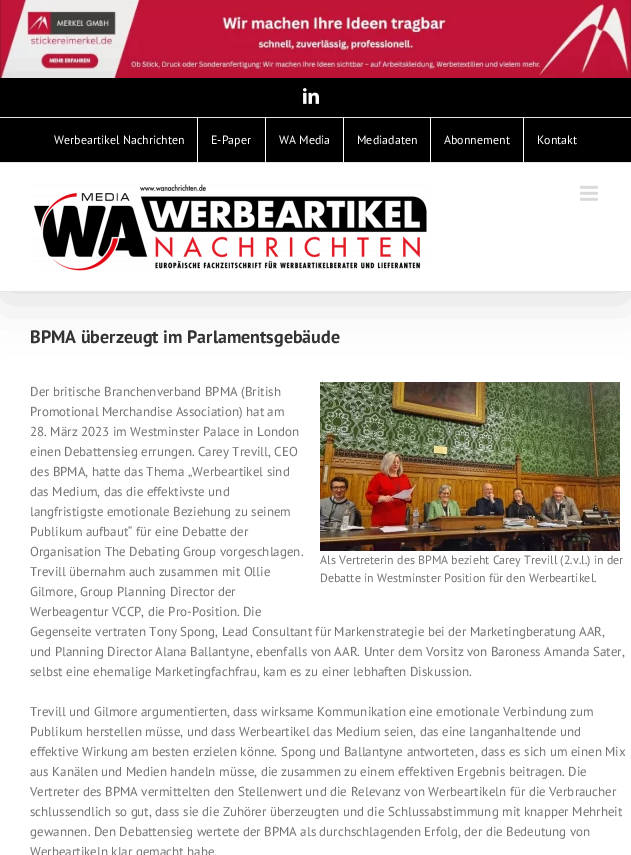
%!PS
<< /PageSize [631 855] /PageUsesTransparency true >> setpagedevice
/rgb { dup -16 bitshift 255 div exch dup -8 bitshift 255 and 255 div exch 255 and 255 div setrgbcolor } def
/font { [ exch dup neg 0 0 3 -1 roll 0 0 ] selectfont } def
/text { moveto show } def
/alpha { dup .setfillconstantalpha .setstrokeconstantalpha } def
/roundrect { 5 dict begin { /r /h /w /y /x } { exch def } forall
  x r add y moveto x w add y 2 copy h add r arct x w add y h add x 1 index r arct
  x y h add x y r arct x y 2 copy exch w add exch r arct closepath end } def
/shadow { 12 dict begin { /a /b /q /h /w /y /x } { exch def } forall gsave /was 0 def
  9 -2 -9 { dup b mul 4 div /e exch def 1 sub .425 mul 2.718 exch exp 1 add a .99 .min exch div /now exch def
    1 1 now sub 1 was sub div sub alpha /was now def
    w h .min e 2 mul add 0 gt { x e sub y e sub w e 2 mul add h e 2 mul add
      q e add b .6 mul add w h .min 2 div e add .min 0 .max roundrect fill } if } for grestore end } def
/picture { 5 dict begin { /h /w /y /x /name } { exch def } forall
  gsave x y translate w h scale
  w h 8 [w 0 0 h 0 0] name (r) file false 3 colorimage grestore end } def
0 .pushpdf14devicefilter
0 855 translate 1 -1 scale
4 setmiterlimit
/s1 { /PTSans-Regular 12 font 16#FFFFFF rgb } def
/s2 { /PTSans-Bold 18 font 16#333333 rgb } def
/s3 { /PTSans-Regular 13 font 16#747474 rgb } def
/s4 { /PTSans-Regular 12 font 16#747474 rgb } def
16#FFFFFF rgb
0 0 631 855 rectfill
(pic1.raw) 0 0 631 78 picture
16#000000 rgb
2 90 627 210 0 25 0.14 shadow
0 78 631 84 rectfill
16#E5E5E5 rgb
0 162 631 1 rectfill
0 117 631 1 rectfill
(pic2.raw) 303 88 16 16 picture
s1
(Werbeartikel Nachrichten) 54 144 text
197 118 1 44 rectfill
(E-Paper) 211 144 text
265 118 1 44 rectfill
(WA Media) 279 144 text
343 118 1 44 rectfill
(Mediadaten) 357 144 text
430 118 1 44 rectfill
(Abonnement) 444 144 text
523 118 1 44 rectfill
(Kontakt) 537 144 text
0 163 631 128 rectfill
16#E5E5E5 rgb
0 291 631 1 rectfill
(pic3.raw) 33 184 394 87 picture
(pic4.raw) 580 185 18 16 picture
s2
(BPMA überzeugt im Parlamentsgebäude) 30 343 text
s3
(Der britische Branchenverband BPMA \(British) 30 396 text
(Promotional Merchandise Association\) hat am) 30 416 text
(28. März 2023 im Westminster Palace in London) 30 436 text
(einen Debattensieg errungen. Carey Trevill, CEO) 30 456 text
(des BPMA, hatte das Thema „Werbeartikel sind) 30 476 text
(das Medium, das die effektivste und) 30 496 text
(langfristigste emotionale Beziehung zu seinem) 30 516 text
(Publikum aufbaut“ für eine Debatte der) 30 536 text
(Organisation The Debating Group vorgeschlagen.) 30 556 text
(Trevill übernahm auch zusammen mit Ollie) 30 576 text
(Gilmore, Group Planning Director der) 30 596 text
(Werbeagentur VCCP, die Pro-Position. Die) 30 616 text
(Gegenseite vertraten Tony Spong, Lead Consultant für Markenstrategie bei der Marketingberatung AAR,) 30 636 text
(und Planning Director Alana Ballantyne, ebenfalls von AAR. Unter dem Vorsitz von Baroness Amanda Sater,) 30 656 text
(selbst eine ehemalige Marketingfachfrau, kam es zu einer lebhaften Diskussion.) 30 676 text
(pic5.raw) 320 382 300 169 picture
s4
(Als Vertreterin des BPMA bezieht Carey Trevill \(2.v.l.\) in der) 320 564 text
(Debatte in Westminster Position für den Werbeartikel.) 320 582 text
s3
(Trevill und Gilmore argumentierten, dass wirksame Kommunikation eine emotionale Verbindung zum) 30 716 text
(Publikum herstellen müsse, und dass Werbeartikel das Medium seien, das eine langanhaltende und) 30 736 text
(effektive Wirkung am besten erzielen könne. Spong und Ballantyne antworteten, dass es sich um einen Mix) 30 756 text
(aus Kanälen und Medien handeln müsse, die zusammen zu einem effektiven Ergebnis beitragen. Die) 30 776 text
(Vertreter des BPMA vermittelten den Stellenwert und die Relevanz von Werbeartikeln für die Verbraucher) 30 796 text
(schlussendlich so gut, dass sie die Zuhörer überzeugten und die Schlussabstimmung mit knapper Mehrheit) 30 816 text
(gewannen. Den Debattensieg wertete der BPMA als durchschlagenden Erfolg, der die Bedeutung von) 30 836 text
(Werbeartikeln klar gemacht habe.) 30 856 text
.poppdf14devicefilter showpage
